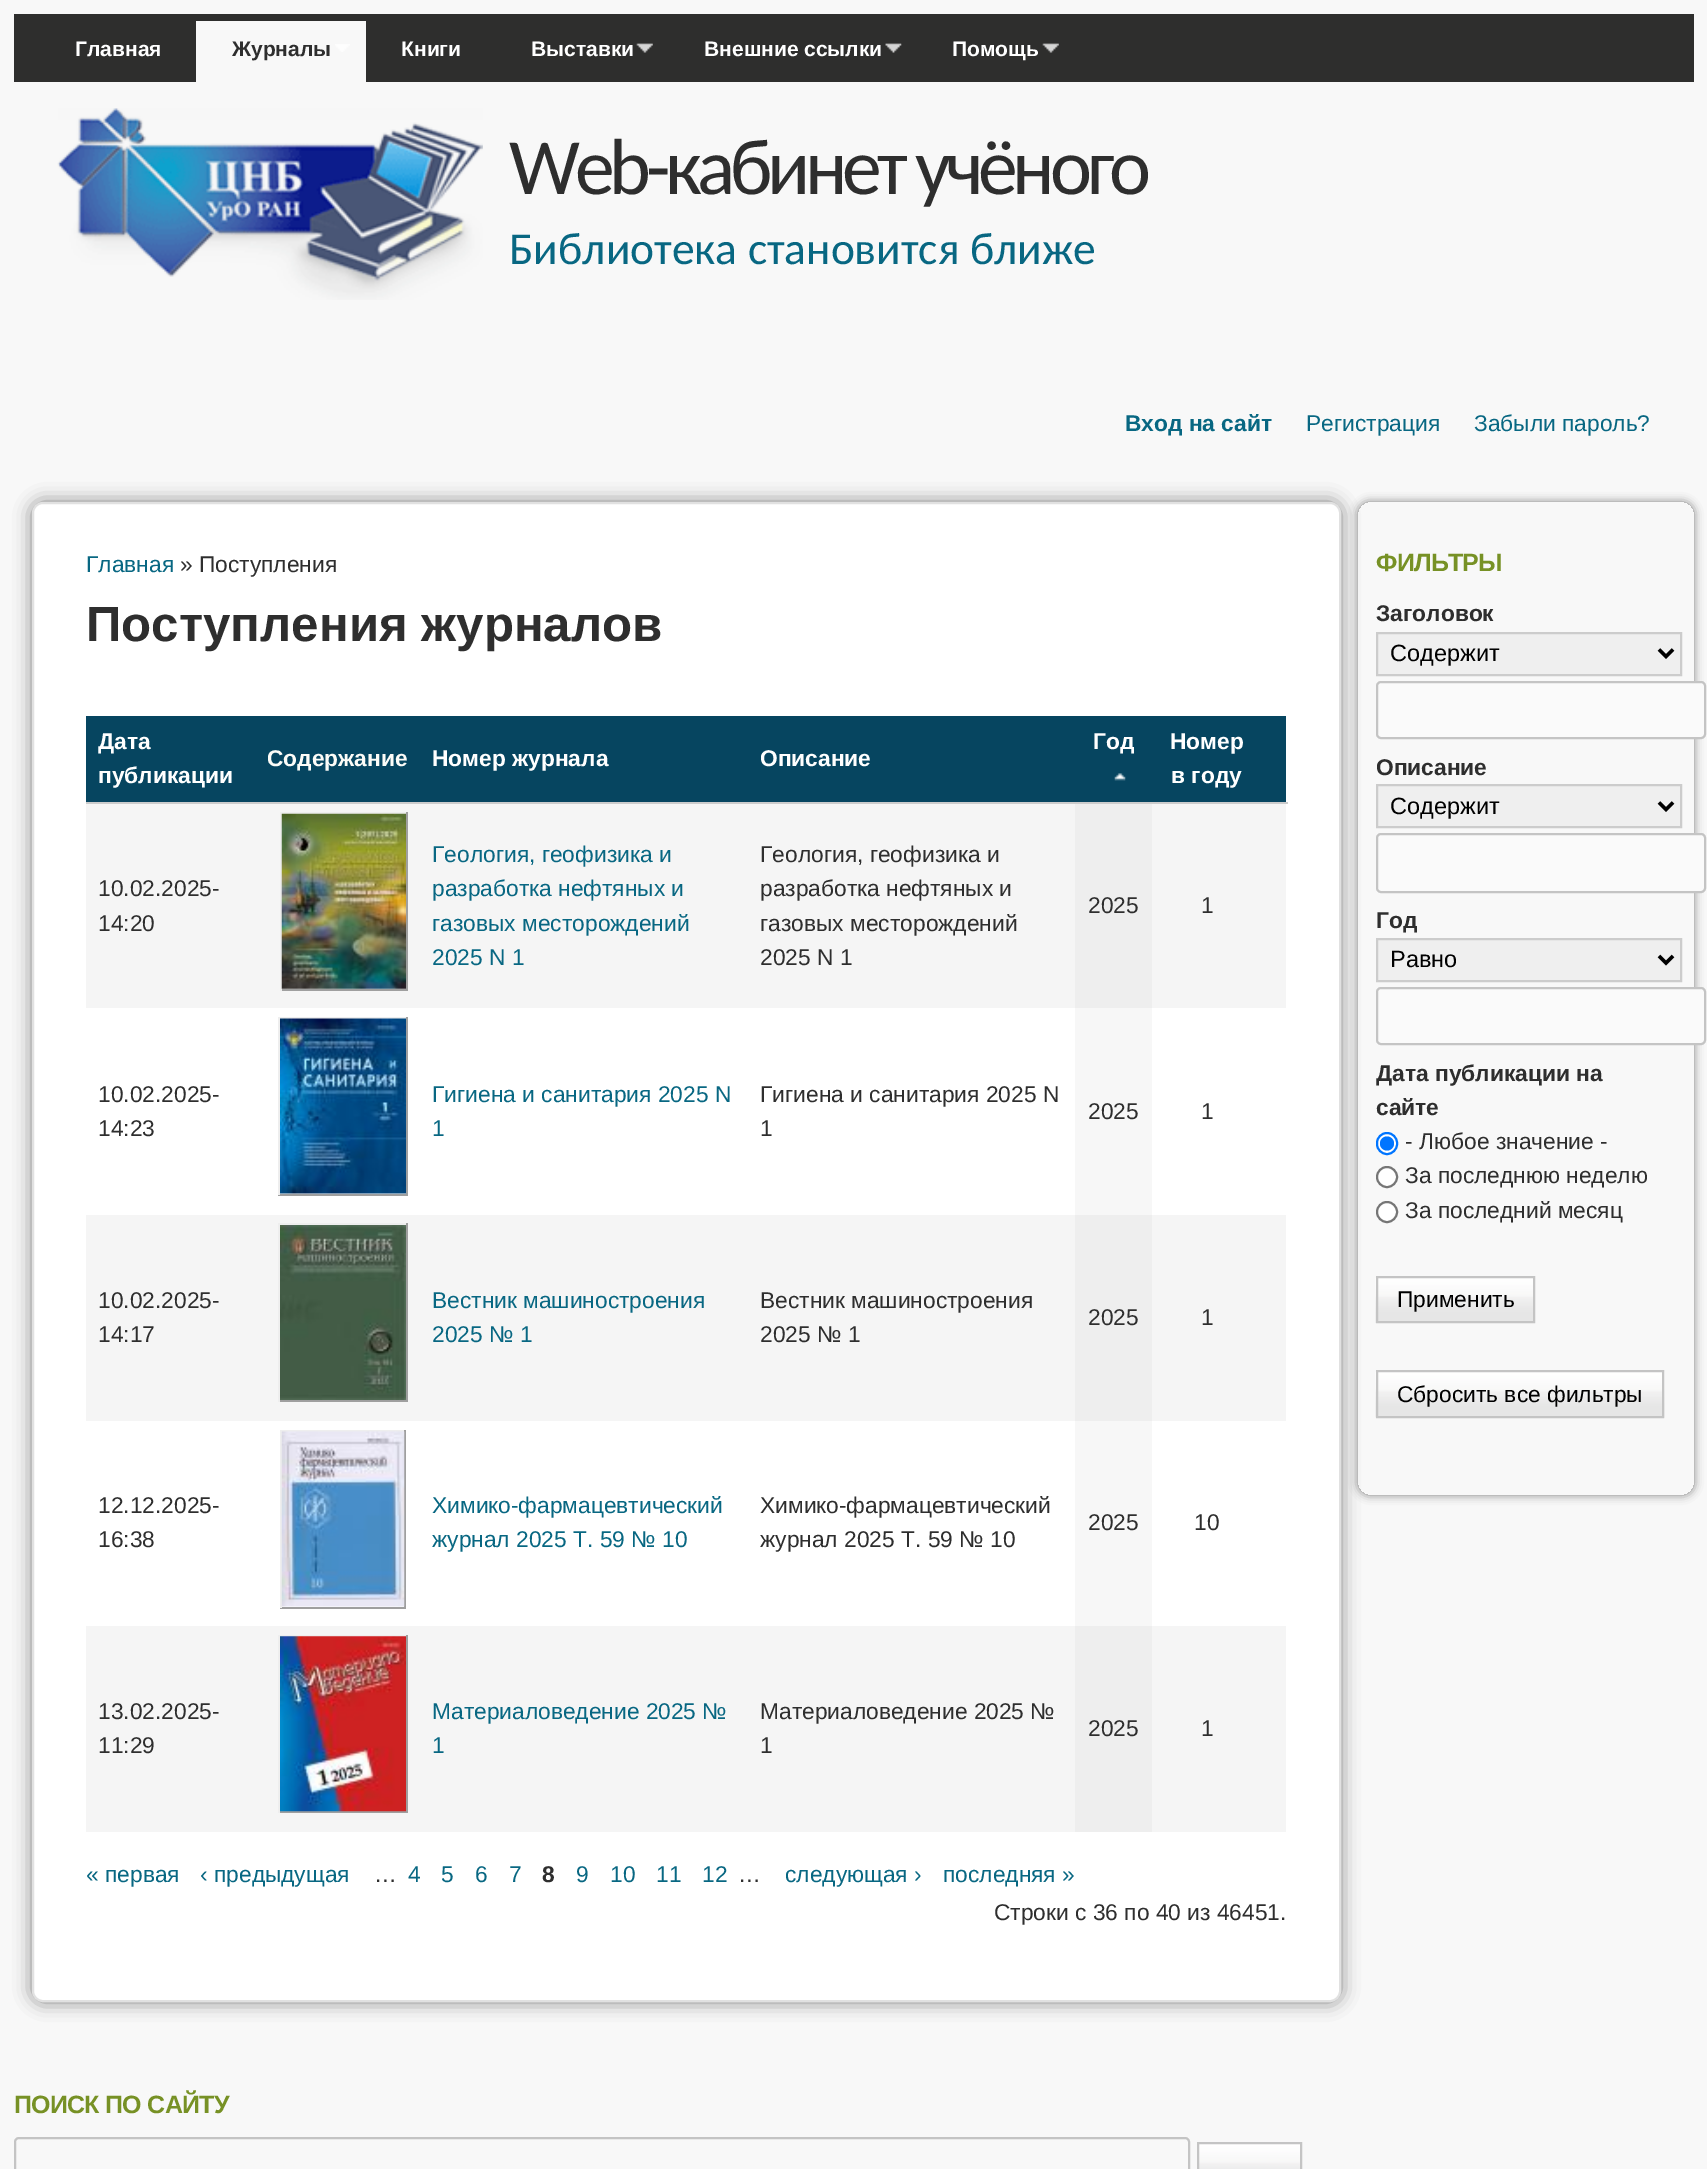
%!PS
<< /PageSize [1707 2169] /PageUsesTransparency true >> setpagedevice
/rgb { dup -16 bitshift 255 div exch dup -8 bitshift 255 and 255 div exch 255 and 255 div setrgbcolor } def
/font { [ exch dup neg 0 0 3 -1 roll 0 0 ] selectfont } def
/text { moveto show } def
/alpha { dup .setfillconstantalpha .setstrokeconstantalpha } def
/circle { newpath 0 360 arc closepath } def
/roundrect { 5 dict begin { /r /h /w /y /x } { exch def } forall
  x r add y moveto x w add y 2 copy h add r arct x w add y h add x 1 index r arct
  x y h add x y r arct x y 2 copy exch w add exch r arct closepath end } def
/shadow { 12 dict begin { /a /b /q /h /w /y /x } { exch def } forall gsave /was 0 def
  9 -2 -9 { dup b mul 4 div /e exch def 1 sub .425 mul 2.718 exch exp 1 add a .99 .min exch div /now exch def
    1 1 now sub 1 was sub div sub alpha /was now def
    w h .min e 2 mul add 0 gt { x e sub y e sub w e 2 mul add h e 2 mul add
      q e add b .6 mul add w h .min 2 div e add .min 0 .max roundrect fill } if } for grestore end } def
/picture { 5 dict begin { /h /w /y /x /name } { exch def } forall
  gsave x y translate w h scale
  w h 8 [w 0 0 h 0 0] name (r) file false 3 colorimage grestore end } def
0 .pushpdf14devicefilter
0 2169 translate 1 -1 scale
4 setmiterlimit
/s1 { /LiberationSans-Bold 21 font 16#FFFFFF rgb } def
/s2 { /LiberationSans-Bold 21 font 16#2E2E2E rgb } def
/s3 { /Carlito-Regular 45.5 font 16#086782 rgb } def
/s4 { /LiberationSans-Bold 22.75 font 16#086782 rgb } def
/s5 { /LiberationSans-Regular 22.75 font 16#086782 rgb } def
/s6 { /LiberationSans-Regular 22.75 font 16#2E2E2E rgb } def
/s7 { /LiberationSans-Bold 49.25 font 16#2E2E2E rgb } def
/s8 { /LiberationSans-Bold 22.75 font 16#FFFFFF rgb } def
/s9 { /LiberationSans-Bold 22.75 font 16#FCFCF8 rgb } def
/s10 { /LiberationSans-Bold 22.75 font 16#2E2E2E rgb } def
/s11 { /LiberationSans-Regular 23.5 font 16#000000 rgb } def
/s12 { /LiberationSans-Regular 22.75 font 16#000000 rgb } def
16#F8F8F8 rgb
0 0 1707 2169 rectfill
16#2E2E2D rgb
14 14 1680 68 rectfill
s1
(Главная) 75 56 text
16#F8F8F8 rgb
196 21 170 61 rectfill
s2
(Журналы) 232 56 text
(pic1.raw) 335 44 15 8 picture
s1
(Книги) 401 56 text
(Выставки) 531 56 text
(pic2.raw) 636 43 17 10 picture
(Внешние ссылки) 704 56 text
(pic3.raw) 885 43 17 10 picture
(Помощь) 952 56 text
(pic2.raw) 1042 43 17 10 picture
(pic4.raw) 57 108 426 192 picture
/Carlito-Regular 79.75 font
16#2E2E2E rgb
509 194 moveto -5.25 0 (Web-кабинет учёного) ashow
s3
(Библиотека становится ближе) 509 264 text
s4
(Вход на сайт) 1125 431 text
s5
(Регистрация) 1306 431 text
(Забыли пароль?) 1474 431 text
16#4C4C4C rgb
32 502 1309 1500 11 9 0.7 shadow
16#FFFFFF rgb
33 503 1307 1498 10 roundrect gsave fill grestore
16#E1E1E1 rgb
2 setlinewidth
stroke
s5
(Главная) 86 572 text
s6
(» Поступления) 180 572 text
s7
(Поступления журналов) 86 641 text
16#064560 rgb
86 716 1200 86 rectfill
s8
(Дата) 98 749 text
(публикации) 98 783 text
s9
(Содержание) 267 766 text
s8
(Номер журнала) 432 766 text
(Описание) 760 766 text
(Год) 1093 749 text
(pic5.raw) 1114 773 12 8 picture
(Номер) 1170 749 text
(в году) 1171 783 text
16#CCCCCC rgb
86 802 1202 2 rectfill
16#F5F5F5 rgb
86 804 1200 204 rectfill
s6
(10.02.2025-) 98 896 text
(14:20) 98 931 text
16#EEEEEE rgb
280 812 128 2 rectfill
16#9F9F9F rgb
406 812 2 179 rectfill
280 989 128 2 rectfill
16#EEEEEE rgb
280 812 2 179 rectfill
(pic6.raw) 281 813 125 176 picture
s5
(Геология, геофизика и) 432 862 text
(разработка нефтяных и) 432 896 text
(газовых месторождений) 432 931 text
(2025 N 1) 432 965 text
s6
(Геология, геофизика и) 760 862 text
(разработка нефтяных и) 760 896 text
(газовых месторождений) 760 931 text
(2025 N 1) 760 965 text
16#EEEEEE rgb
1075 804 77 204 rectfill
s6
(2025) 1088 913 text
(1) 1201 913 text
(10.02.2025-) 98 1102 text
(14:23) 98 1136 text
16#EEEEEE rgb
278 1017 130 2 rectfill
16#9F9F9F rgb
406 1017 2 178 rectfill
278 1194 130 2 rectfill
16#EEEEEE rgb
278 1017 2 178 rectfill
(pic7.raw) 280 1018 126 176 picture
s5
(Гигиена и санитария 2025 N) 432 1102 text
(1) 432 1136 text
s6
(Гигиена и санитария 2025 N) 760 1102 text
(1) 760 1136 text
16#F7F7F7 rgb
1075 1008 77 207 rectfill
s6
(2025) 1088 1119 text
(1) 1201 1119 text
16#F5F5F5 rgb
86 1215 1200 206 rectfill
s6
(10.02.2025-) 98 1308 text
(14:17) 98 1342 text
16#EEEEEE rgb
278 1223 130 2 rectfill
16#9F9F9F rgb
406 1223 2 179 rectfill
278 1400 130 2 rectfill
16#EEEEEE rgb
278 1223 2 179 rectfill
(pic8.raw) 280 1225 126 175 picture
s5
(Вестник машиностроения) 432 1308 text
(2025 № 1) 432 1342 text
s6
(Вестник машиностроения) 760 1308 text
(2025 № 1) 760 1342 text
16#EEEEEE rgb
1075 1215 77 206 rectfill
s6
(2025) 1088 1325 text
(1) 1201 1325 text
(12.12.2025-) 98 1513 text
(16:38) 98 1547 text
16#EEEEEE rgb
280 1430 126 2 rectfill
16#9F9F9F rgb
404 1430 2 178 rectfill
280 1607 126 2 rectfill
16#EEEEEE rgb
280 1430 2 178 rectfill
(pic9.raw) 281 1431 124 176 picture
s5
(Химико-фармацевтический) 432 1513 text
(журнал 2025 Т. 59 № 10) 432 1547 text
s6
(Химико-фармацевтический) 760 1513 text
(журнал 2025 Т. 59 № 10) 760 1547 text
16#F7F7F7 rgb
1075 1421 77 205 rectfill
s6
(2025) 1088 1530 text
(10) 1194 1530 text
16#F5F5F5 rgb
86 1626 1200 206 rectfill
s6
(13.02.2025-) 98 1719 text
(11:29) 98 1753 text
16#EEEEEE rgb
278 1635 130 2 rectfill
16#9F9F9F rgb
406 1635 2 178 rectfill
278 1811 130 2 rectfill
16#EEEEEE rgb
278 1635 2 178 rectfill
(pic10.raw) 280 1636 126 176 picture
s5
(Материаловедение 2025 №) 432 1719 text
(1) 432 1753 text
s6
(Материаловедение 2025 №) 760 1719 text
(1) 760 1753 text
16#EEEEEE rgb
1075 1626 77 206 rectfill
s6
(2025) 1088 1736 text
(1) 1201 1736 text
s5
(« первая) 86 1882 text
(‹ предыдущая) 200 1882 text
s6
(…) 374 1882 text
s5
(4) 408 1882 text
(5) 441 1882 text
(6) 475 1882 text
(7) 509 1882 text
s10
(8) 542 1882 text
s5
(9) 576 1882 text
(10) 610 1882 text
(11) 656 1882 text
(12) 702 1882 text
s6
(…) 738 1882 text
s5
(следующая ›) 785 1882 text
(последняя ») 943 1882 text
s6
(Строки с 36 по 40 из 46451.) 994 1920 text
gsave
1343 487 moveto 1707 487 lineto 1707 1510 lineto 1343 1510 lineto closepath 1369 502 moveto 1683 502 lineto 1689 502 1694 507 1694 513 curveto 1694 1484 lineto 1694 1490 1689 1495 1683 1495 curveto 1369 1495 lineto 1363 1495 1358 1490 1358 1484 curveto 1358 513 lineto 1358 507 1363 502 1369 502 curveto closepath eoclip newpath
16#4C4C4C rgb
1358 502 336 993 11 4.5 0.7 shadow
grestore
/LiberationSans-Bold 25 font
16#779125 rgb
1376 571 moveto -0.75 0 (ФИЛЬТРЫ) ashow
s10
(Заголовок) 1376 621 text
16#EFEFEF rgb
1377 633 moveto 1681 633 lineto 1681 675 lineto 1377 675 lineto closepath gsave fill grestore
16#CCCCCC rgb
stroke
16#000000 rgb
3.5 setlinewidth
1659 649.5 moveto 1666 656.5 lineto 1673 649.5 lineto stroke
s11
(Содержит) 1390 661 text
16#FAFAFA rgb
1377 682 328 56 4 roundrect gsave fill grestore
16#C4C4C4 rgb
2 setlinewidth
stroke
s10
(Описание) 1376 775 text
16#EFEFEF rgb
1377 785 moveto 1681 785 lineto 1681 827 lineto 1377 827 lineto closepath gsave fill grestore
16#CCCCCC rgb
stroke
16#000000 rgb
3.5 setlinewidth
1659 802.5 moveto 1666 809.5 lineto 1673 802.5 lineto stroke
s11
(Содержит) 1390 814 text
16#FAFAFA rgb
1377 834 328 58 4 roundrect gsave fill grestore
16#C4C4C4 rgb
2 setlinewidth
stroke
s10
(Год) 1376 928 text
16#EFEFEF rgb
1377 939 moveto 1681 939 lineto 1681 981 lineto 1377 981 lineto closepath gsave fill grestore
16#CCCCCC rgb
stroke
16#000000 rgb
3.5 setlinewidth
1659 956 moveto 1666 963 lineto 1673 956 lineto stroke
s11
(Равно) 1390 967 text
16#FAFAFA rgb
1377 988 328 56 4 roundrect gsave fill grestore
16#C4C4C4 rgb
2 setlinewidth
stroke
s10
(Дата публикации на) 1376 1081 text
(сайте) 1376 1115 text
16#FFFFFF rgb
1377 1133 20 21 10 roundrect gsave fill grestore
16#0075FF rgb
stroke
1387 1143.5 7 circle fill
s6
(- Любое значение -) 1405 1149 text
16#FFFFFF rgb
1387 1177 10 circle gsave fill grestore
16#767676 rgb
stroke
s6
(За последнюю неделю) 1405 1183 text
16#FFFFFF rgb
1387 1212 10 circle gsave fill grestore
16#767676 rgb
stroke
s6
(За последний месяц) 1405 1218 text
(pic11.raw) 1375 1278 158 45 picture
16#C4C4C4 rgb
1377 1277 157 45 rectstroke
s12
(Применить) 1397 1307 text
(pic12.raw) 1375 1372 290 46 picture
16#C4C4C4 rgb
1377 1371 286 46 rectstroke
s12
(Сбросить все фильтры) 1397 1402 text
/LiberationSans-Bold 25 font
16#779125 rgb
14 2113 moveto -0.75 0 (ПОИСК ПО САЙТУ) ashow
16#C4C4C4 rgb
15 2138 1174 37 4 roundrect stroke
(pic13.raw) 1199 2144 101 25 picture
1198 2143 103 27 rectstroke
.poppdf14devicefilter showpage
